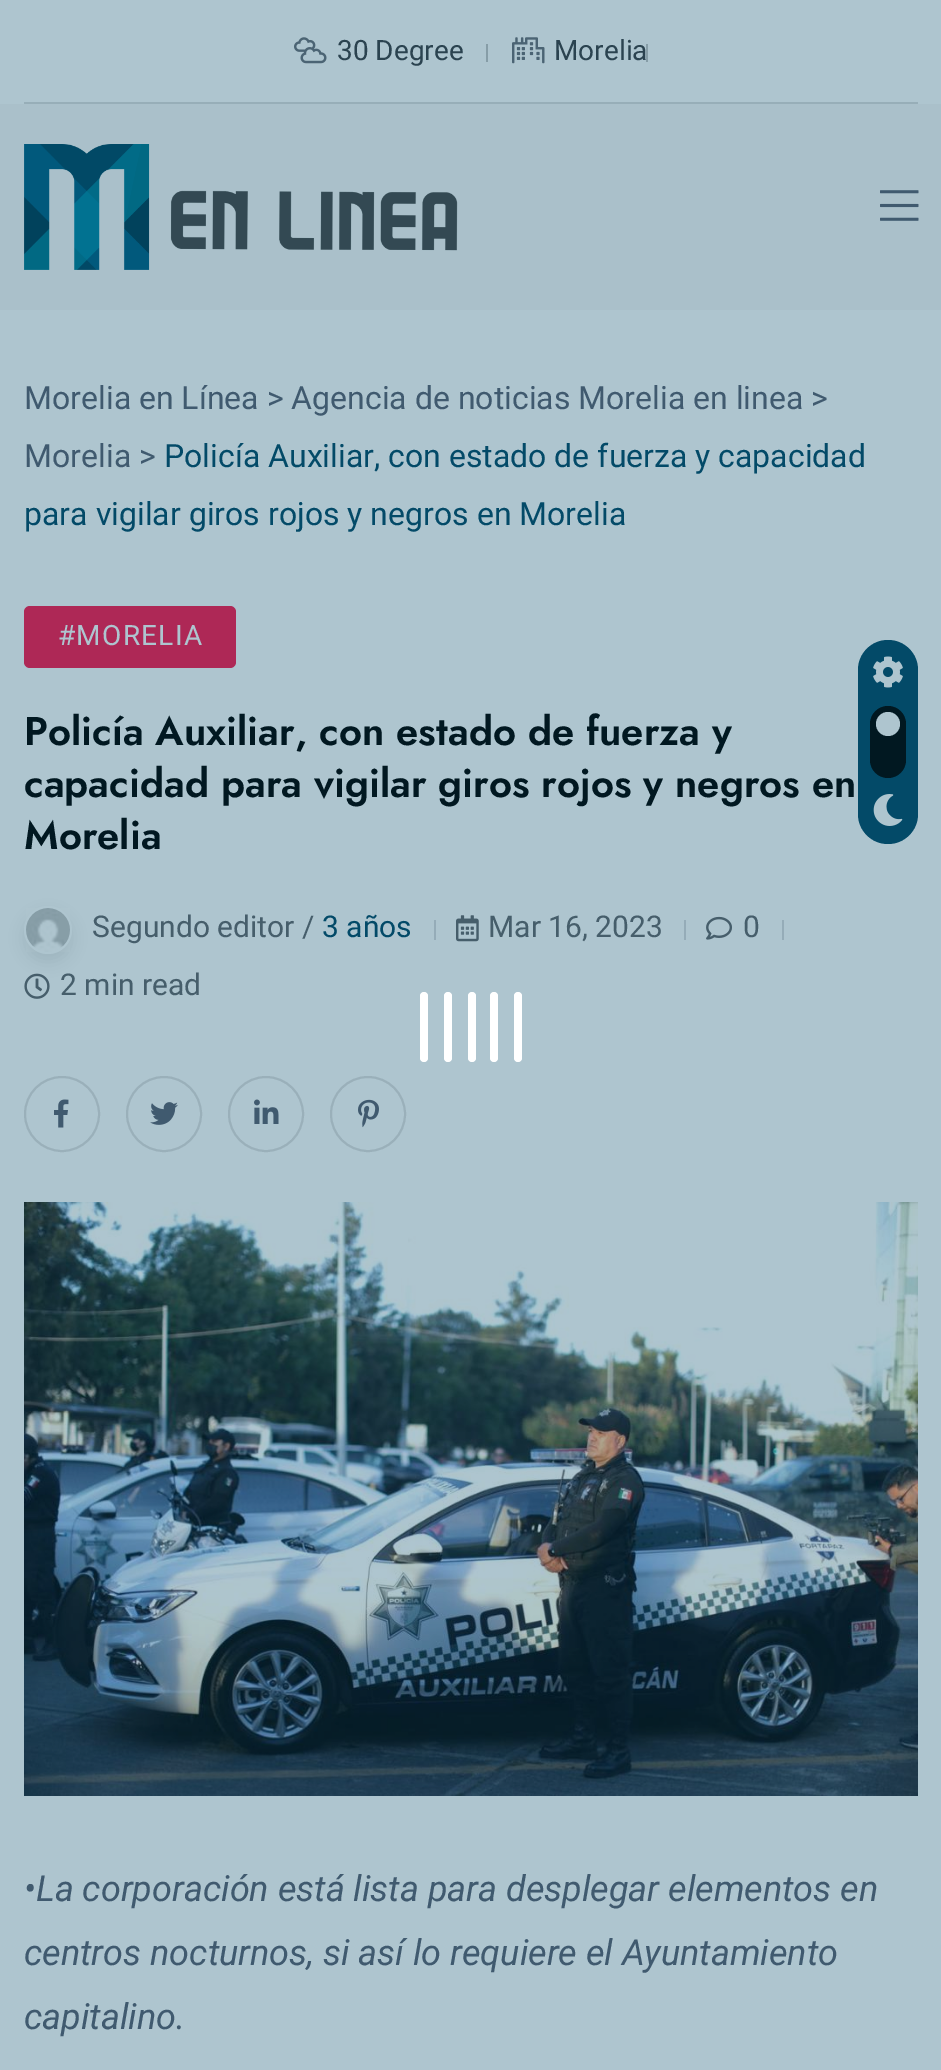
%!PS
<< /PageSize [941 2070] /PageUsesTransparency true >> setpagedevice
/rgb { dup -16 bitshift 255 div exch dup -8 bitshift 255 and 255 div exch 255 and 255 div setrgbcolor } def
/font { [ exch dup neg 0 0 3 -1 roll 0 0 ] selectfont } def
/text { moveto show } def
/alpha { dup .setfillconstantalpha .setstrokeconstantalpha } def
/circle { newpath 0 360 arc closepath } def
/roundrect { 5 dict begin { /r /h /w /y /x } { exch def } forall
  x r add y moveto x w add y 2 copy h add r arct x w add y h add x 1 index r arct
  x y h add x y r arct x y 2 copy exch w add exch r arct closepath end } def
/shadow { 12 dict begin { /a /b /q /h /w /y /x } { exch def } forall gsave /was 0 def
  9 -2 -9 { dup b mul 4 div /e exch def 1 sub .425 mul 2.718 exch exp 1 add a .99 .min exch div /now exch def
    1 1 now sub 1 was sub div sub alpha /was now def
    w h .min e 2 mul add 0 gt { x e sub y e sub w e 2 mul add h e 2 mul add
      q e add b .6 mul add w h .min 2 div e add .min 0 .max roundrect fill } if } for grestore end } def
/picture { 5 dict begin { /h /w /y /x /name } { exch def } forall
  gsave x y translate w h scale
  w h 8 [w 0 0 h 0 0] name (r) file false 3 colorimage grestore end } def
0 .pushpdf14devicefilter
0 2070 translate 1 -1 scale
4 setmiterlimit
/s1 { /Roboto-Regular 28 font 16#2B4350 rgb } def
/s2 { /Roboto-Regular 32 font 16#405A6F rgb } def
/s3 { /Roboto-Regular 32 font 16#034A68 rgb } def
/s4 { /Jost-SemiBold 40 font 16#011821 rgb } def
/s5 { /Roboto-Regular 30 font 16#465E6B rgb } def
/s6 { /Roboto-Regular 30 font 16#034A68 rgb } def
/s7 { /Roboto-Italic 36 font 16#405A6F rgb } def
16#AEC5CF rgb
0 0 941 2070 rectfill
16#97AEB8 rgb
24 102 894 2 rectfill
(pic1.raw) 294 37 33 27 picture
s1
(30 Degree) 337 60 text
16#869DA7 rgb
486 44 2 18 rectfill
(pic2.raw) 512 37 33 27 picture
s1
(Morelia) 554 60 text
16#869DA7 rgb
646 44 2 18 rectfill
16#AAC0CA rgb
0 104 941 206 rectfill
(pic3.raw) 24 144 434 126 picture
(pic4.raw) 880 190 39 31 picture
s2
(Morelia en Línea > Agencia de noticias Morelia en linea >) 24 409 text
(Morelia >) 24 467 text
s3
(Policía Auxiliar, con estado de fuerza y capacidad) 164 467 text
(para vigilar giros rojos y negros en Morelia) 24 525 text
16#AE2856 rgb
24 606 212 62 6 roundrect fill
/Roboto-Regular 28 font
16#AEC5CF rgb
58 645 moveto 1.25 0 (#MORELIA) ashow
s4
(Policía Auxiliar, con estado de fuerza y) 24 745 text
(capacidad para vigilar giros rojos y negros en) 24 797 text
(Morelia) 24 849 text
24 914 48 48 24 7 0.08 shadow
16#AEC5CF rgb
48 930 24 circle fill
(pic5.raw) 26 908 44 44 picture
s5
(Segundo editor /) 92 937 text
s6
(3 años) 322 937 text
16#95ACB8 rgb
434 920 2 20 rectfill
(pic6.raw) 456 915 23 27 picture
s5
(Mar 16, 2023) 488 937 text
16#95ACB8 rgb
684 920 2 20 rectfill
(pic7.raw) 706 916 26 24 picture
s5
(0) 743 937 text
16#95ACB8 rgb
782 920 2 20 rectfill
(pic8.raw) 24 973 26 26 picture
s5
(2 min read) 60 995 text
16#9AB0BA rgb
2 setlinewidth
62 1114 37 circle stroke
(pic9.raw) 54 1099 15 29 picture
164 1114 37 circle stroke
(pic10.raw) 150 1102 28 23 picture
266 1114 37 circle stroke
(pic11.raw) 254 1099 25 25 picture
368 1114 37 circle stroke
(pic12.raw) 358 1099 21 29 picture
(pic13.raw) 24 1202 894 594 picture
s7
(•La corporación está lista para desplegar elementos en) 24 1901 text
(centros nocturnos, si así lo requiere el Ayuntamiento) 24 1965 text
(capitalino.) 24 2029 text
16#034A68 rgb
858 640 60 204 30 roundrect fill
(pic14.raw) 873 656 30 32 picture
16#011821 rgb
870 706 36 72 18 roundrect fill
16#AEC5CF rgb
888 724 12 circle fill
(pic15.raw) 873 794 30 32 picture
16#FFFFFF rgb
420 992 8 70 4 roundrect fill
444 992 8 70 4 roundrect fill
468 992 8 70 4 roundrect fill
490 992 8 70 4 roundrect fill
514 992 8 70 4 roundrect fill
.poppdf14devicefilter showpage
